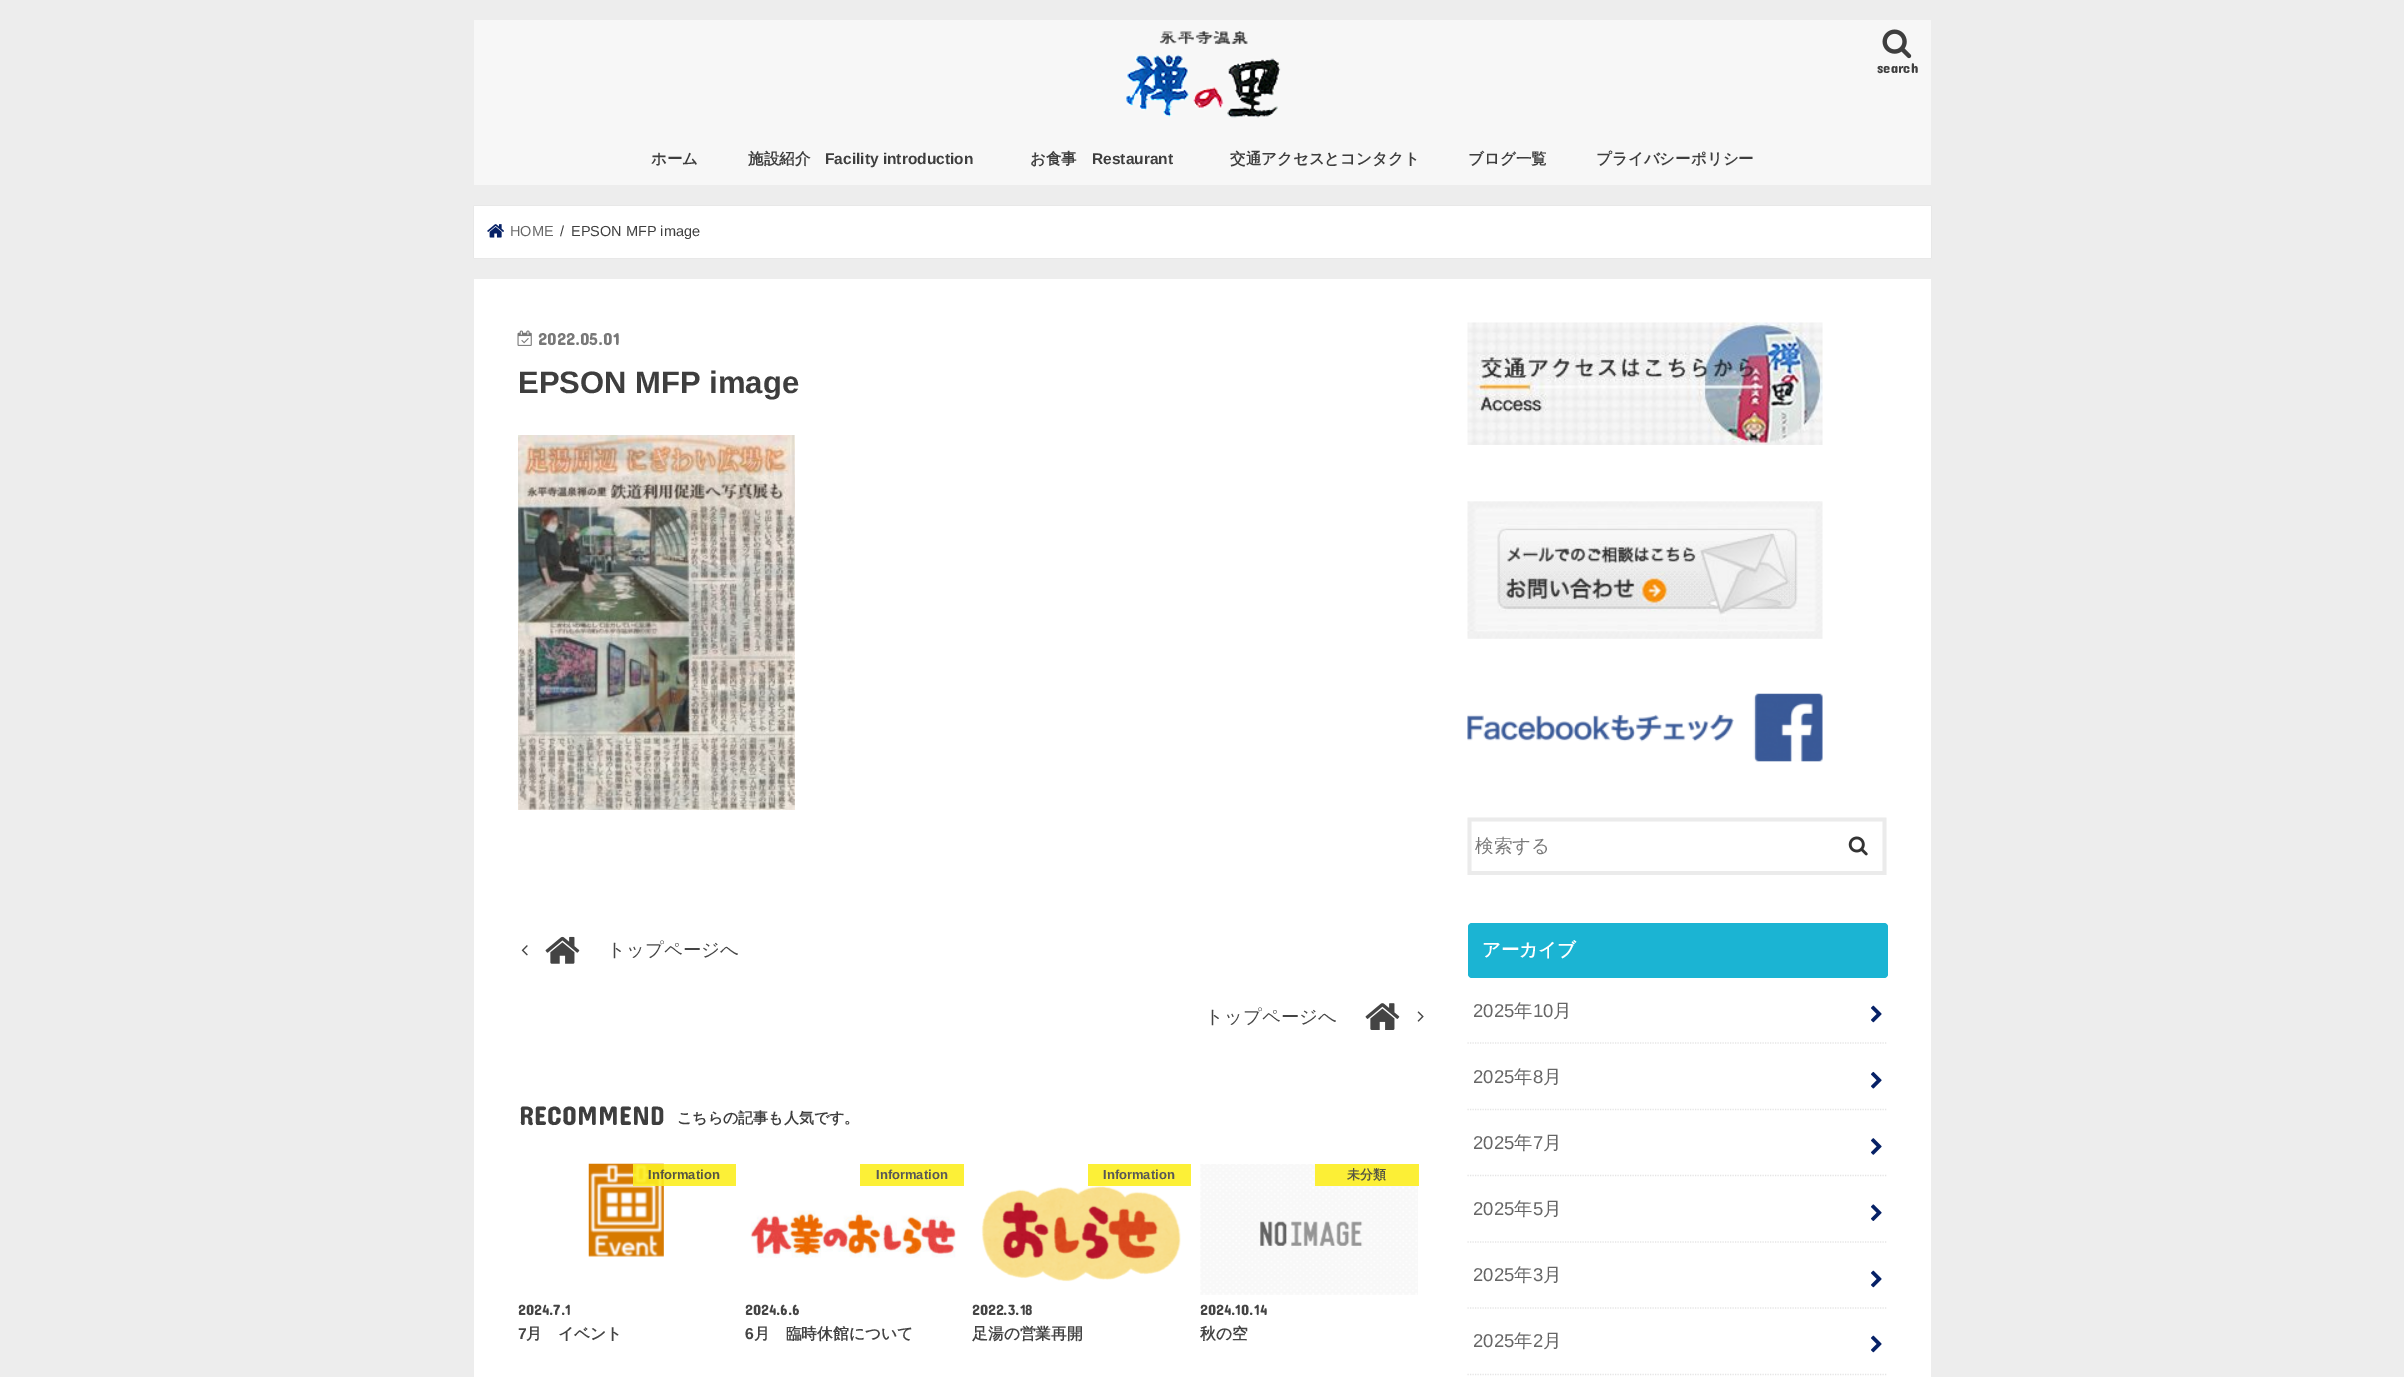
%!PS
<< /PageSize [2404 1377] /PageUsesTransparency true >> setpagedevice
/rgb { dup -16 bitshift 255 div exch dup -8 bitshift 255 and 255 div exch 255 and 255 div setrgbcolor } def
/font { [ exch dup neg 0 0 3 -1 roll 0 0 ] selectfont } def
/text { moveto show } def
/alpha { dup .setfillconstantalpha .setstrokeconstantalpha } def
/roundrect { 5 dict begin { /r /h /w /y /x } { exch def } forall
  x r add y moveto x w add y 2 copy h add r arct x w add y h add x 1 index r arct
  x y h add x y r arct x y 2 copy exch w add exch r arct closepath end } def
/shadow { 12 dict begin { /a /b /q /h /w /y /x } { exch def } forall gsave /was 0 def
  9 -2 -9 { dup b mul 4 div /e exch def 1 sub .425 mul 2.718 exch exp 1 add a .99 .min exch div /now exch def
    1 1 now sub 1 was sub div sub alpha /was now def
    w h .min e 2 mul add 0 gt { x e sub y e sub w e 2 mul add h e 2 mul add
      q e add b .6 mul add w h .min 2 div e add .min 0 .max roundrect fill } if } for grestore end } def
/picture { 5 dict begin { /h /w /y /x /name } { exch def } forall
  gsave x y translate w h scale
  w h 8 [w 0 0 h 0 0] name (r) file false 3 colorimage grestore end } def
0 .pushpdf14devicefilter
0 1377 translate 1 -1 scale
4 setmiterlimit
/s1 { /ConcertOne-Regular 14.5 font 16#3E3E3E rgb } def
/s2 { /WenQuanYiZenHei-Bold 15.5 font 16#3E3E3E rgb } def
/s3 { /LiberationSans-Bold 15.5 font 16#3E3E3E rgb } def
/s4 { /LiberationSans-Regular 14.5 font 16#666666 rgb } def
/s5 { /LiberationSans-Regular 14.5 font 16#3E3E3E rgb } def
/s6 { /ConcertOne-Regular 17.5 font 16#787878 rgb } def
/s7 { /LiberationSans-Bold 31 font 16#3E3E3E rgb } def
/s8 { /WenQuanYiZenHei-Medium 18.5 font 16#444444 rgb } def
/s9 { /ConcertOne-Regular 27 font 16#3E3E3E rgb } def
/s10 { /WenQuanYiZenHei-Bold 15 font 16#3E3E3E rgb } def
/s11 { /LiberationSans-Bold 13 font 16#565542 rgb } def
/s12 { /ConcertOne-Regular 15 font 16#444444 rgb } def
/s13 { /LiberationSans-Bold 15.75 font 16#444444 rgb } def
/s14 { /WenQuanYiZenHei-Bold 15.75 font 16#444444 rgb } def
/s15 { /LiberationSans-Bold 13 font 16#575757 rgb } def
/s16 { /WenQuanYiZenHei-Bold 13 font 16#565542 rgb } def
/s17 { /WenQuanYiZenHei-Medium 18.5 font 16#787878 rgb } def
/s18 { /WenQuanYiZenHei-Bold 18.5 font 16#FFFFFF rgb } def
/s19 { /LiberationSans-Regular 18.5 font 16#666666 rgb } def
/s20 { /WenQuanYiZenHei-Medium 18.5 font 16#666666 rgb } def
16#EDEDED rgb
0 0 2404 1377 rectfill
16#F7F7F7 rgb
474 20 1457 165 rectfill
(pic1.raw) 1126 31 155 87 picture
(pic2.raw) 1882 29 30 30 picture
s1
(search) 1877 73 text
s2
(ホーム) 651 164 text
(施設紹介) 748 164 text
s3
(Facility introduction) 825 164 text
s2
(お食事) 1030 164 text
s3
(Restaurant) 1092 164 text
s2
(交通アクセスとコンタクト) 1230 164 text
(ブログ一覧) 1468 164 text
(プライバシーポリシー) 1596 164 text
16#DDDDDD rgb
474 206 1457 52 0 0.5 1 shadow
16#FFFFFF rgb
474 206 1457 52 rectfill
(pic3.raw) 487 224 17 14 picture
s4
(HOME) 510 236 text
s5
(/) 560 236 text
(EPSON MFP image) 571 236 text
16#FFFFFF rgb
474 279 1457 1098 rectfill
(pic4.raw) 517 330 15 16 picture
s6
(2022.05.01) 538 345 text
s7
(EPSON MFP image) 518 393 text
(pic5.raw) 518 435 277 375 picture
(pic6.raw) 521 945 7 11 picture
(pic7.raw) 545 936 35 28 picture
s8
(トップページへ) 607 956 text
(トップページへ) 1205 1023 text
(pic8.raw) 1365 1003 35 27 picture
(pic9.raw) 1417 1011 7 11 picture
s9
(RECOMMEND) 519 1125 text
s10
(こちらの記事も人気です。) 677 1123 text
(pic10.raw) 588 1163 76 94 picture
0.9 alpha
16#FCEE21 rgb
633 1164 103 22 rectfill
1 alpha
s11
(Information) 648 1179 text
s12
(2024.7.1) 518 1315 text
s13
(7) 518 1339 text
s14
(月　イベント) 526 1339 text
16#FCF037 rgb
860 1164 104 22 rectfill
s15
(Information) 876 1179 text
(pic11.raw) 750 1210 206 48 picture
s12
(2024.6.6) 745 1315 text
s13
(6) 745 1339 text
s14
(月　臨時休館について) 754 1339 text
16#FCF037 rgb
1088 1164 103 22 rectfill
s15
(Information) 1103 1179 text
(pic12.raw) 981 1186 200 96 picture
s12
(2022.3.18) 972 1315 text
s14
(足湯の営業再開) 972 1339 text
(pic13.raw) 1200 1164 218 131 picture
0.9 alpha
16#FCEE21 rgb
1315 1164 104 22 rectfill
1 alpha
s16
(未分類) 1347 1179 text
s12
(2024.10.14) 1200 1315 text
s14
(秋の空) 1200 1339 text
(pic14.raw) 1467 322 356 123 picture
(pic15.raw) 1467 501 356 138 picture
(pic16.raw) 1467 693 356 69 picture
16#EBEBEB rgb
3.8 setlinewidth
1469.5 819.5 moveto 1884.5 819.5 lineto 1884.5 873 lineto 1469.5 873 lineto closepath stroke
s17
(検索する) 1475 852 text
(pic17.raw) 1848 836 20 20 picture
16#1BB4D3 rgb
1468 923 420 55 4 roundrect fill
s18
(アーカイブ) 1482 956 text
16#E5E5E5 rgb
1.2 setlinewidth
[1.25 1.25] 0 setdash
1467.5 1043 moveto 1887.5 1043 lineto stroke
s19
(2025) 1473 1017 text
s20
(年) 1514 1017 text
s19
(10) 1533 1017 text
s20
(月) 1553 1017 text
(pic18.raw) 1871 1005 11 18 picture
16#E5E5E5 rgb
1467.5 1109.5 moveto 1887.5 1109.5 lineto stroke
s19
(2025) 1473 1083 text
s20
(年) 1514 1083 text
s19
(8) 1533 1083 text
s20
(月) 1543 1083 text
(pic19.raw) 1871 1071 11 18 picture
16#E5E5E5 rgb
1467.5 1175.5 moveto 1887.5 1175.5 lineto stroke
s19
(2025) 1473 1149 text
s20
(年) 1514 1149 text
s19
(7) 1533 1149 text
s20
(月) 1543 1149 text
(pic20.raw) 1871 1138 11 17 picture
16#E5E5E5 rgb
1467.5 1242 moveto 1887.5 1242 lineto stroke
s19
(2025) 1473 1215 text
s20
(年) 1514 1215 text
s19
(5) 1533 1215 text
s20
(月) 1543 1215 text
(pic21.raw) 1871 1204 11 17 picture
16#E5E5E5 rgb
1467.5 1308 moveto 1887.5 1308 lineto stroke
s19
(2025) 1473 1281 text
s20
(年) 1514 1281 text
s19
(3) 1533 1281 text
s20
(月) 1543 1281 text
(pic18.raw) 1871 1270 11 18 picture
16#E5E5E5 rgb
1467.5 1374.5 moveto 1887.5 1374.5 lineto stroke
s19
(2025) 1473 1347 text
s20
(年) 1514 1347 text
s19
(2) 1533 1347 text
s20
(月) 1543 1347 text
(pic18.raw) 1871 1335 11 18 picture
.poppdf14devicefilter showpage
